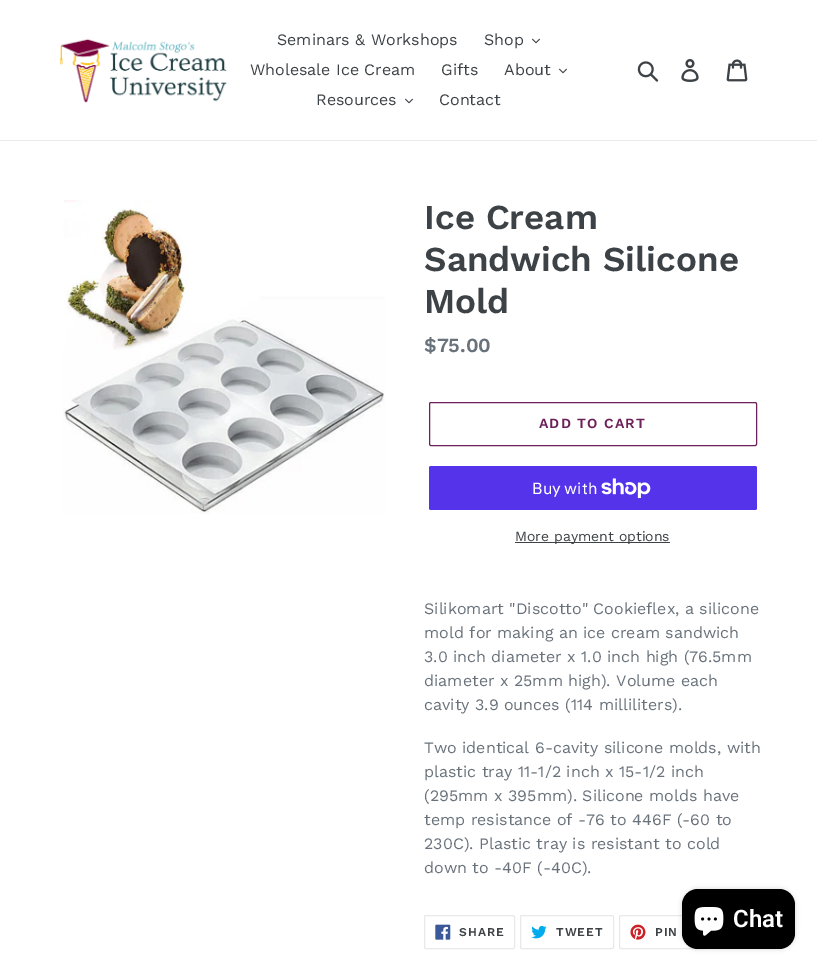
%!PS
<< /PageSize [817 970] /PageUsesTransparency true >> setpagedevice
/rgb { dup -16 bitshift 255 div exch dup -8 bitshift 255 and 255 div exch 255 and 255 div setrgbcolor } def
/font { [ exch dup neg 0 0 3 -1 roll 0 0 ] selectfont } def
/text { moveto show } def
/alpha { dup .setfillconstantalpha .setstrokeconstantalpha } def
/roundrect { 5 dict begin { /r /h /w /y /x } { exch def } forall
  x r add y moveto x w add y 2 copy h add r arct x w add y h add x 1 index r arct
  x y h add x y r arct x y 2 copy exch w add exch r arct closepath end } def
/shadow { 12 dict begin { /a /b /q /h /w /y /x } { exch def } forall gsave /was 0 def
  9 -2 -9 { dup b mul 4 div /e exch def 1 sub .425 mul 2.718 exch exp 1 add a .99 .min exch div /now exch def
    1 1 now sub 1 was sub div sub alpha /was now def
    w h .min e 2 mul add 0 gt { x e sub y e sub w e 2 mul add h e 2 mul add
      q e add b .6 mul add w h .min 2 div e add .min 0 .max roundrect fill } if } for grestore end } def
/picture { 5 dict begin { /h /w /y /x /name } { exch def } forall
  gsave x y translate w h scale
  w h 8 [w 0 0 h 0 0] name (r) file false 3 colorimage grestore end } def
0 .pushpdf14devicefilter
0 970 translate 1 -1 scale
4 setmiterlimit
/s1 { /WorkSans-Regular 16 font 16#3D4246 rgb } def
/s2 { /WorkSans-SemiBold 35 font 16#3D4246 rgb } def
/s3 { /WorkSans-SemiBold 20 font 16#69727B rgb } def
/s4 { /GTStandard-Regular 16 font 16#FFFFFF rgb } def
/s5 { /WorkSans-Regular 14 font 16#3D4246 rgb } def
/s6 { /WorkSans-Regular 16 font 16#69727B rgb } def
/s7 { /Roboto-SemiBold 24 font 16#FFFFFF rgb } def
16#FFFFFF rgb
0 0 817 970 rectfill
16#E8E9EB rgb
0 140 817 1 rectfill
(pic1.raw) 59 38 168 65 picture
s1
(Seminars & Workshops) 277 45 text
(Shop) 484 45 text
(pic2.raw) 532 38 8 6 picture
(Wholesale Ice Cream) 250 75 text
(Gifts) 441 75 text
(About) 504 75 text
(pic2.raw) 559 68 8 6 picture
(Resources) 316 105 text
(pic2.raw) 405 98 8 6 picture
(Contact) 439 105 text
(pic3.raw) 637 61 22 21 picture
(pic4.raw) 681 59 18 23 picture
(pic5.raw) 726 59 22 23 picture
(pic6.raw) 63 200 322 314 picture
s2
(Ice Cream) 424 229 text
(Sandwich Silicone) 424 271 text
(Mold) 424 313 text
s3
($75.00) 424 352 text
16#6D2059 rgb
429.5 402.5 327 43 1.5 roundrect stroke
/WorkSans-SemiBold 14 font
539 428 moveto 1.1 0 (ADD TO CART) ashow
16#5433EB rgb
429 466 328 44 2 roundrect fill
s4
(Buy with) 532 494 text
(pic7.raw) 601 478 50 20 picture
16#3D4246 rgb
515 542 155 1 rectfill
s5
(More payment options) 515 541 text
s6
(Silikomart "Discotto" Cookieflex, a silicone) 424 614 text
(mold for making an ice cream sandwich) 424 638 text
(3.0 inch diameter x 1.0 inch high \(76.5mm) 424 662 text
(diameter x 25mm high\). Volume each) 424 686 text
(cavity 3.9 ounces \(114 milliliters\).) 424 710 text
(Two identical 6-cavity silicone molds, with) 424 753 text
(plastic tray 11-1/2 inch x 15-1/2 inch) 424 777 text
(\(295mm x 395mm\). Silicone molds have) 424 801 text
(temp resistance of -76 to 446F \(-60 to) 424 825 text
(230C\). Plastic tray is resistant to cold) 424 849 text
(down to -40F \(-40C\).) 424 873 text
16#E8E9EB rgb
424.5 915.5 90 33 1.5 roundrect stroke
(pic8.raw) 435 924 16 16 picture
/WorkSans-SemiBold 12 font
16#3D4246 rgb
459 936 moveto 1 0 (SHARE) ashow
16#E8E9EB rgb
520.5 915.5 93 33 1.5 roundrect stroke
(pic9.raw) 531 925 16 14 picture
16#3D4246 rgb
556 936 moveto 1 0 (TWEET) ashow
16#E8E9EB rgb
619.5 915.5 87 33 1.5 roundrect stroke
(pic10.raw) 630 924 16 16 picture
16#3D4246 rgb
655 936 moveto 1 0 (PIN) ashow
16#000000 rgb
682 889 113 60 16 2.5 0.15 shadow
682 889 113 60 16 roundrect fill
(pic11.raw) 694 907 30 29 picture
s7
(Chat) 733 927 text
.poppdf14devicefilter showpage
